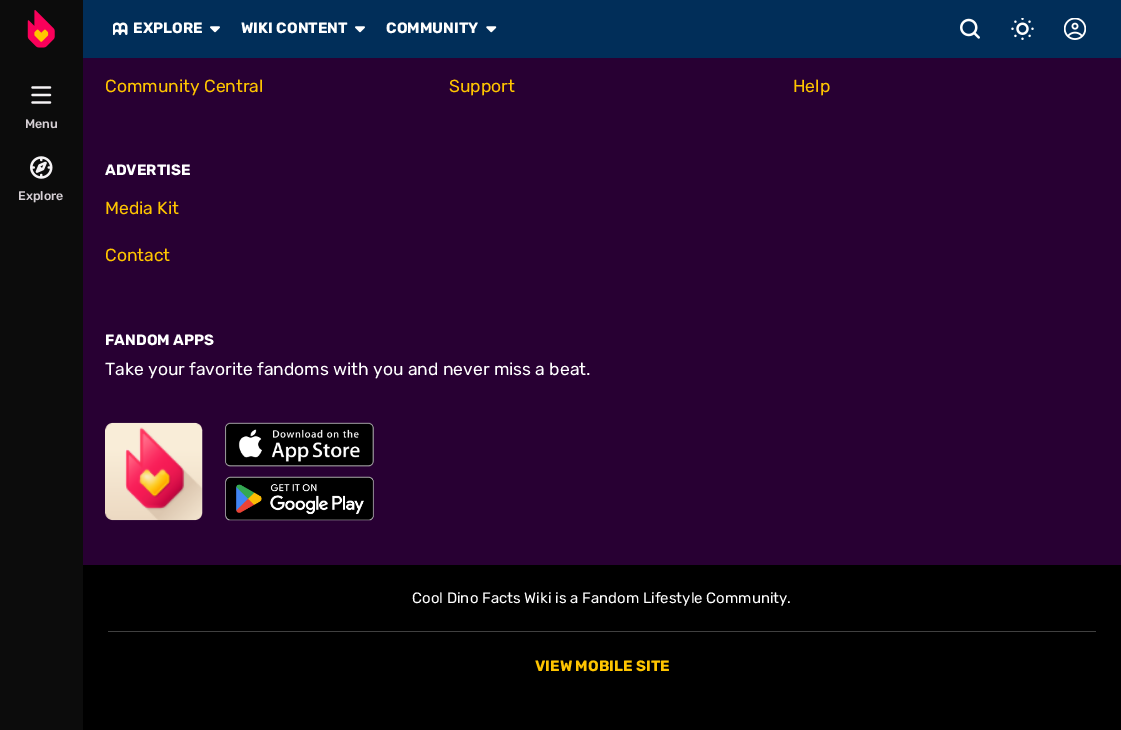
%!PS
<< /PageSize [1121 730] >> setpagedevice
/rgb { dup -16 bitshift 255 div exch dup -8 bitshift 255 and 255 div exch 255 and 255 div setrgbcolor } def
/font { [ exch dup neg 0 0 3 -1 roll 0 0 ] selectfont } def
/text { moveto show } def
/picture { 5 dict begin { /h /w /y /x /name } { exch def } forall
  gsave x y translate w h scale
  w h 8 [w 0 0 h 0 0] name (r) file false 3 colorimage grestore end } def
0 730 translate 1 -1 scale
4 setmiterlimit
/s1 { /Rubik-Bold 15 font 16#FFFFFF rgb } def
/s2 { /Rubik-Medium 12.5 font 16#D6D0D5 rgb } def
/s3 { /Rubik-Regular 17.5 font 16#FFC500 rgb } def
/s4 { /Rubik-Regular 17.5 font 16#FFFFFF rgb } def
/s5 { /Rubik-Regular 15 font 16#FFFFFF rgb } def
/s6 { /Rubik-Bold 15 font 16#FFC500 rgb } def
16#280033 rgb
0 0 1121 730 rectfill
16#012E59 rgb
83 0 1038 58 rectfill
16#0C0C0C rgb
0 0 83 730 rectfill
(pic1.raw) 27 10 28 38 picture
(pic2.raw) 113 22 15 13 picture
s1
(EXPLORE) 133 33 text
(pic3.raw) 210 26 10 7 picture
(WIKI CONTENT) 241 33 text
(pic3.raw) 355 26 10 7 picture
(COMMUNITY) 386 33 text
(pic4.raw) 486 26 11 7 picture
(pic5.raw) 960 18 20 21 picture
(pic6.raw) 1011 18 23 22 picture
(pic7.raw) 1064 18 22 22 picture
(pic8.raw) 31 86 21 18 picture
s2
(Menu) 25 128 text
(pic9.raw) 30 156 23 23 picture
(Explore) 18 200 text
s3
(Community Central) 105 92 text
(Support) 449 92 text
(Help) 793 92 text
s1
(ADVERTISE) 105 175 text
s3
(Media Kit) 105 214 text
(Contact) 105 261 text
s1
(FANDOM APPS) 105 345 text
s4
(Take your favorite fandoms with you and never miss a beat.) 105 375 text
(pic10.raw) 105 422 98 99 picture
(pic11.raw) 225 422 149 45 picture
(pic12.raw) 225 476 149 45 picture
16#000000 rgb
83 565 1038 165 rectfill
s5
(Cool Dino Facts Wiki is a Fandom Lifestyle Community.) 412 603 text
16#404040 rgb
108 631 988 1 rectfill
s6
(VIEW MOBILE SITE) 535 671 text
showpage
